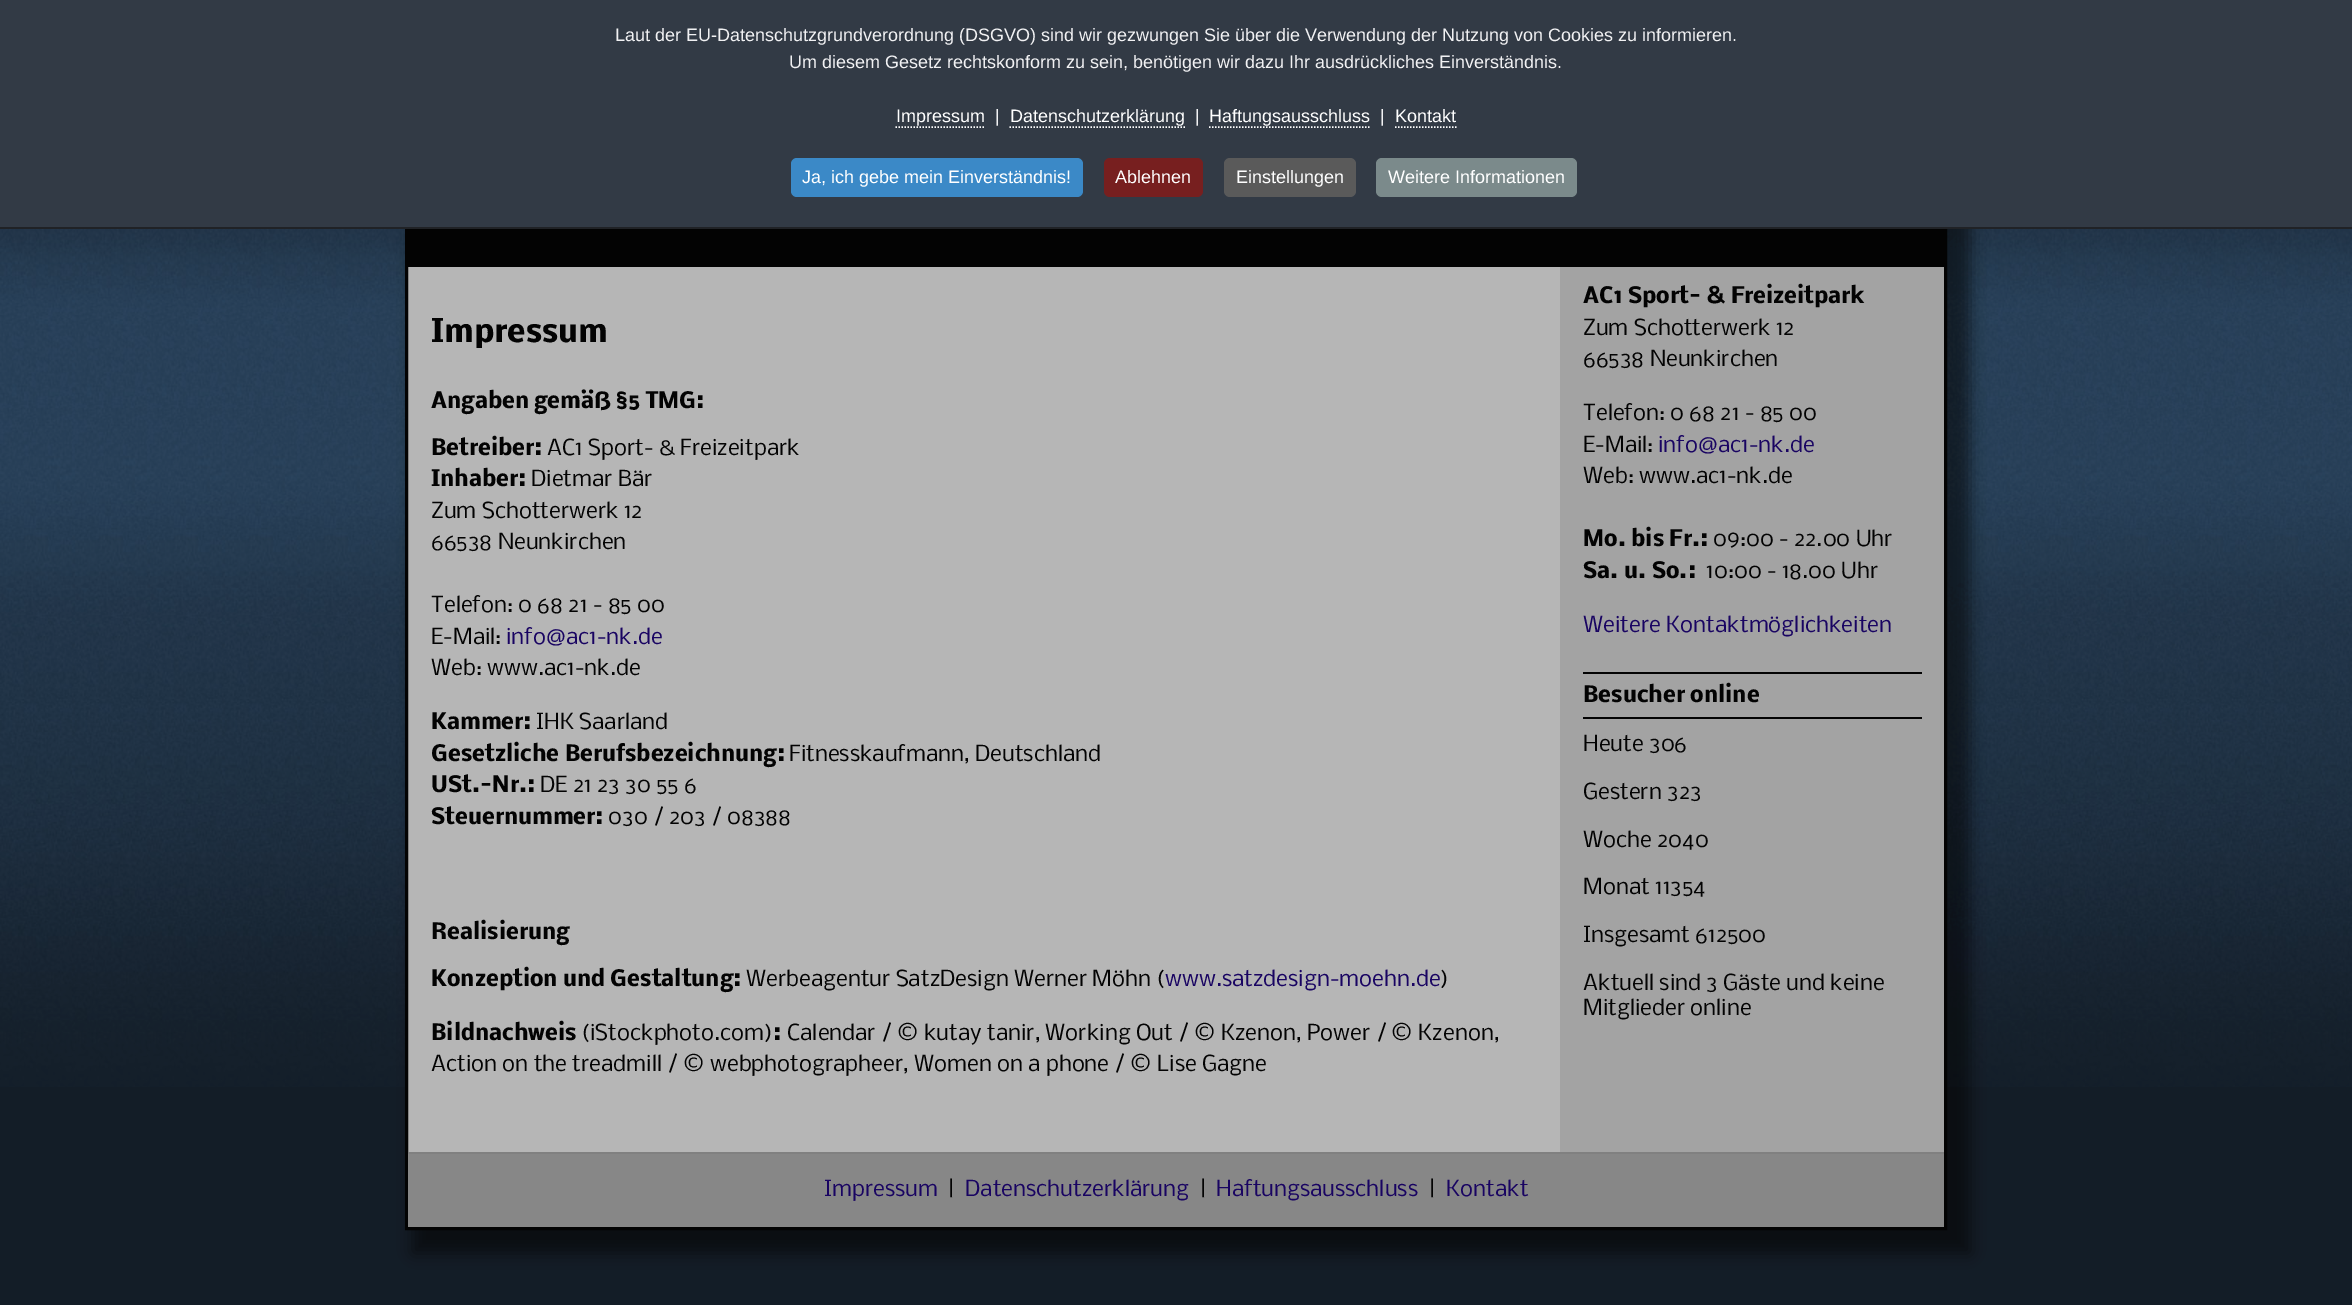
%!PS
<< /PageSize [2352 1305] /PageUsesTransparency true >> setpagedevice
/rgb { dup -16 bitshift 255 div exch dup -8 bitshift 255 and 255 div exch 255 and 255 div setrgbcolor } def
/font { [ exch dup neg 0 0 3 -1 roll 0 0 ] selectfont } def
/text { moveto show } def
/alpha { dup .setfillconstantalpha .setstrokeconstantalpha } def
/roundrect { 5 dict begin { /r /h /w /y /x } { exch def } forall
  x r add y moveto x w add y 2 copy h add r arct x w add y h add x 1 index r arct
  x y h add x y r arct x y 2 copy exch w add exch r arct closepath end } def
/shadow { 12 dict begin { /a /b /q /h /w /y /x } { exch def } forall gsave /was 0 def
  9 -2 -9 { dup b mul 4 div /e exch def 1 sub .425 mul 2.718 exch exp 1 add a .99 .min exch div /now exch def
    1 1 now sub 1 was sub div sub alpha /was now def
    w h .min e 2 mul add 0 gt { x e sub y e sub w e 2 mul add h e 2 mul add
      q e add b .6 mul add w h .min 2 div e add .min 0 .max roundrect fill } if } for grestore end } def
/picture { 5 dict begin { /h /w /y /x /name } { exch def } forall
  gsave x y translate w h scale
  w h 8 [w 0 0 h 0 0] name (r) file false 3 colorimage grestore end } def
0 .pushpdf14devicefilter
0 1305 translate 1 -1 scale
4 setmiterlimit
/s1 { /LiberationSans-Regular 18 font 16#F1F1F3 rgb } def
/s2 { /LiberationSans-Regular 18 font 16#FFFFFF rgb } def
/s3 { /Nobile-Bold 30 font 16#030303 rgb } def
/s4 { /Nobile-Bold 21 font 16#030303 rgb } def
/s5 { /Nobile-Regular 21 font 16#030303 rgb } def
/s6 { /Nobile-Regular 21 font 16#190462 rgb } def
16#131D27 rgb
0 0 2352 1305 rectfill
(pic1.raw) 0 229 2352 858 picture
16#030303 rgb
413 -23 1557 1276 0 7.5 0.56 shadow
16#B6B6B6 rgb
408 267 1152 885 rectfill
16#030303 rgb
3 setlinewidth
406.5 -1.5 1539 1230 rectstroke
16#323A45 rgb
0 0 2352 227 rectfill
16#202226 rgb
0 227 2352 2 rectfill
s1
(Laut der EU-Datenschutzgrundverordnung \(DSGVO\) sind wir gezwungen Sie über die Verwendung der Nutzung von Cookies zu informieren.) 615 41 text
(Um diesem Gesetz rechtskonform zu sein, benötigen wir dazu Ihr ausdrückliches Einverständnis.) 789 68 text
s2
(Impressum) 896 122 text
1.5 setlinewidth
[1.5 1.5] 0 setdash
895.5 127 moveto 985.5 127 lineto stroke
s1
(|) 995 122 text
s2
(Datenschutzerklärung) 1010 122 text
1009.5 127 moveto 1185 127 lineto stroke
s1
(|) 1195 122 text
s2
(Haftungsausschluss) 1209 122 text
1209 127 moveto 1371 127 lineto stroke
s1
(|) 1380 122 text
s2
(Kontakt) 1395 122 text
1395 127 moveto 1456.5 127 lineto stroke
16#3B89C7 rgb
791 158 292 39 6 roundrect fill
s2
(Ja, ich gebe mein Einverständnis!) 802 183 text
16#771F1F rgb
1104 158 99 39 6 roundrect fill
s2
(Ablehnen) 1115 183 text
16#5A5A5A rgb
1224 158 132 39 6 roundrect fill
s2
(Einstellungen) 1236 183 text
16#7B8A8B rgb
1376 158 201 39 6 roundrect fill
s2
(Weitere Informationen) 1388 183 text
16#030303 rgb
408 229 1536 38 rectfill
s3
(Impressum) 431 342 text
s4
(Angaben gemäß §5 TMG:) 431 408 text
(Betreiber:) 431 455 text
s5
(AC1 Sport- & Freizeitpark) 547 455 text
s4
(Inhaber:) 431 486 text
s5
(Dietmar Bär) 531 486 text
(Zum Schotterwerk 12) 431 518 text
(66538 Neunkirchen) 431 549 text
(Telefon: 0 68 21 - 85 00) 431 612 text
(E-Mail:) 431 644 text
s6
(info@ac1-nk.de) 506 644 text
s5
(Web: www.ac1-nk.de) 431 675 text
s4
(Kammer:) 431 729 text
s5
(IHK Saarland) 536 729 text
s4
(Gesetzliche Berufsbezeichnung:) 431 761 text
s5
(Fitnesskaufmann, Deutschland) 789 761 text
s4
(USt.-Nr.:) 431 792 text
s5
(DE 21 23 30 55 6) 540 792 text
s4
(Steuernummer:) 431 824 text
s5
(030 / 203 / 08388) 608 824 text
s4
(Realisierung) 431 939 text
(Konzeption und Gestaltung:) 431 986 text
s5
(Werbeagentur SatzDesign Werner Möhn \() 746 986 text
s6
(www.satzdesign-moehn.de) 1165 986 text
s5
(\)) 1440 986 text
s4
(Bildnachweis) 431 1040 text
s5
(\(iStockphoto.com\)) 581 1040 text
s4
(:) 773 1040 text
s5
(Calendar / © kutay tanir, Working Out / © Kzenon, Power / © Kzenon,) 787 1040 text
(Action on the treadmill / © webphotographeer, Women on a phone / © Lise Gagne) 431 1071 text
16#A3A3A3 rgb
1560 267 384 885 rectfill
s4
(AC1 Sport- & Freizeitpark) 1583 303 text
s5
(Zum Schotterwerk 12) 1583 335 text
(66538 Neunkirchen) 1583 366 text
(Telefon: 0 68 21 - 85 00) 1583 420 text
(E-Mail:) 1583 452 text
s6
(info@ac1-nk.de) 1658 452 text
s5
(Web: www.ac1-nk.de) 1583 483 text
s4
(Mo. bis Fr.:) 1583 546 text
s5
(09:00 - 22.00 Uhr) 1713 546 text
s4
(Sa. u. So.:) 1583 578 text
s5
(10:00 - 18.00 Uhr) 1706 578 text
s6
(Weitere Kontaktmöglichkeiten) 1583 632 text
16#030303 rgb
1583 672 339 2 rectfill
1583 717 339 2 rectfill
s4
(Besucher online) 1583 702 text
s5
(Heute 306) 1583 751 text
(Gestern 323) 1583 799 text
(Woche 2040) 1583 847 text
(Monat 11354) 1583 894 text
(Insgesamt 612500) 1583 942 text
(Aktuell sind 3 Gäste und keine) 1583 990 text
(Mitglieder online) 1583 1015 text
16#878787 rgb
408 1154 1536 73 rectfill
16#808080 rgb
408 1152 1536 2 rectfill
s6
(Impressum) 824 1196 text
s5
(|) 948 1196 text
s6
(Datenschutzerklärung) 965 1196 text
s5
(|) 1200 1196 text
s6
(Haftungsausschluss) 1216 1196 text
s5
(|) 1429 1196 text
s6
(Kontakt) 1446 1196 text
.poppdf14devicefilter showpage
